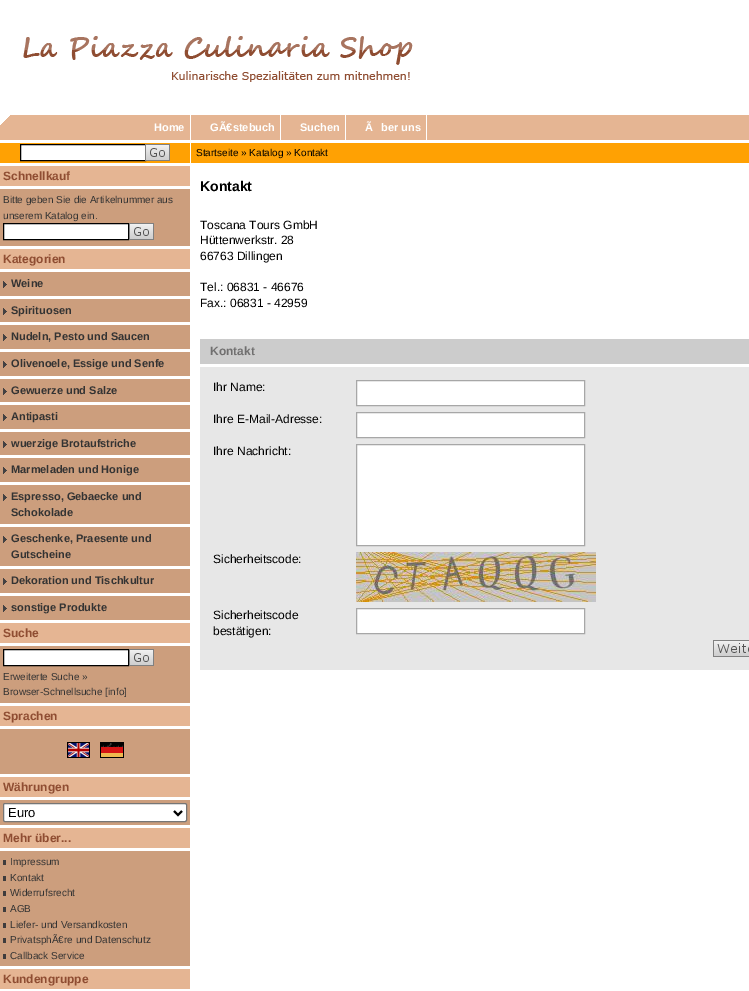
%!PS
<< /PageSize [749 991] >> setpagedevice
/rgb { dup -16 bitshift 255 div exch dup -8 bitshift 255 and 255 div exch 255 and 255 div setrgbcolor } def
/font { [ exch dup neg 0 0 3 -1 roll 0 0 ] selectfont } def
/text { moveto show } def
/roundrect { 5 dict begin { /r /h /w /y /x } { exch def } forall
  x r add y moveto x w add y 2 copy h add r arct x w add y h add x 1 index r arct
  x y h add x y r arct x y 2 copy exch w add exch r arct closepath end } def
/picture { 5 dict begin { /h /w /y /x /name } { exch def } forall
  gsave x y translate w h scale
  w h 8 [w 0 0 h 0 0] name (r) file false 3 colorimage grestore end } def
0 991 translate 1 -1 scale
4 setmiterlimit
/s1 { /LiberationSans-Bold 11 font 16#FFFFFF rgb } def
/s2 { /LiberationSans-Regular 10 font 16#000000 rgb } def
/s3 { /LiberationSans-Bold 12 font 16#8F4D32 rgb } def
/s4 { /LiberationSans-Regular 10 font 16#333333 rgb } def
/s5 { /LiberationSans-Bold 11 font 16#333333 rgb } def
/s6 { /LiberationSans-Regular 13 font 16#000000 rgb } def
/s7 { /LiberationSans-Bold 14 font 16#000000 rgb } def
/s8 { /LiberationSans-Regular 12 font 16#000000 rgb } def
/s9 { /LiberationSans-Bold 12 font 16#706F6F rgb } def
16#FFFFFF rgb
0 0 749 991 rectfill
(pic1.raw) 23 36 390 46 picture
16#E5B593 rgb
0 115 749 25 rectfill
(pic2.raw) 0 115 10 10 picture
16#FFFFFF rgb
190 115 1 25 rectfill
s1
(Home) 154 131 text
280 115 1 25 rectfill
(GÃ€stebuch) 210 131 text
345 115 1 25 rectfill
(Suchen) 300 131 text
426 115 1 25 rectfill
(Ã) 365 131 text
(ber uns) 381 131 text
16#FFA103 rgb
0 143 749 20 rectfill
16#FFFFFF rgb
190 143 1 20 rectfill
20.5 144.5 moveto 145.5 144.5 lineto 145.5 160.5 lineto 20.5 160.5 lineto closepath gsave fill grestore
16#000000 rgb
stroke
(pic3.raw) 145 144 25 17 picture
s2
(Startseite » Katalog » Kontakt) 196 156 text
16#E5B593 rgb
0 166 190 20 rectfill
s3
(Schnellkauf) 3 180 text
16#CC9E7D rgb
0 189 190 57 rectfill
s4
(Bitte geben Sie die Artikelnummer aus) 3 203 text
(unserem Katalog ein.) 3 219 text
16#FFFFFF rgb
3.5 223.5 moveto 128.5 223.5 lineto 128.5 239.5 lineto 3.5 239.5 lineto closepath gsave fill grestore
16#000000 rgb
stroke
(pic3.raw) 129 223 25 17 picture
16#E5B593 rgb
0 249 190 20 rectfill
s3
(Kategorien) 3 263 text
16#CC9E7D rgb
0 272 190 24 rectfill
(pic4.raw) 3 281 4 7 picture
s5
(Weine) 11 287 text
16#CC9E7D rgb
0 299 190 23 rectfill
(pic4.raw) 3 308 4 7 picture
s5
(Spirituosen) 11 314 text
16#CC9E7D rgb
0 325 190 24 rectfill
(pic4.raw) 3 334 4 7 picture
s5
(Nudeln, Pesto und Saucen) 11 340 text
16#CC9E7D rgb
0 352 190 24 rectfill
(pic4.raw) 3 361 4 7 picture
s5
(Olivenoele, Essige und Senfe) 11 367 text
16#CC9E7D rgb
0 379 190 23 rectfill
(pic4.raw) 3 388 4 7 picture
s5
(Gewuerze und Salze) 11 394 text
16#CC9E7D rgb
0 405 190 24 rectfill
(pic4.raw) 3 414 4 7 picture
s5
(Antipasti) 11 420 text
16#CC9E7D rgb
0 432 190 23 rectfill
(pic4.raw) 3 441 4 7 picture
s5
(wuerzige Brotaufstriche) 11 447 text
16#CC9E7D rgb
0 458 190 24 rectfill
(pic4.raw) 3 467 4 7 picture
s5
(Marmeladen und Honige) 11 473 text
16#CC9E7D rgb
0 485 190 39 rectfill
(pic4.raw) 3 494 4 7 picture
s5
(Espresso, Gebaecke und) 11 500 text
(Schokolade) 11 516 text
16#CC9E7D rgb
0 527 190 39 rectfill
(pic4.raw) 3 536 4 7 picture
s5
(Geschenke, Praesente und) 11 542 text
(Gutscheine) 11 558 text
16#CC9E7D rgb
0 569 190 24 rectfill
(pic4.raw) 3 578 4 7 picture
s5
(Dekoration und Tischkultur) 11 584 text
16#CC9E7D rgb
0 596 190 24 rectfill
(pic4.raw) 3 605 4 7 picture
s5
(sonstige Produkte) 11 611 text
16#E5B593 rgb
0 623 190 20 rectfill
s3
(Suche) 3 637 text
16#CC9E7D rgb
0 646 190 57 rectfill
16#FFFFFF rgb
3.5 649.5 moveto 128.5 649.5 lineto 128.5 665.5 lineto 3.5 665.5 lineto closepath gsave fill grestore
16#000000 rgb
stroke
(pic3.raw) 129 649 25 17 picture
s4
(Erweiterte Suche ») 3 680 text
(Browser-Schnellsuche [info]) 3 695 text
16#E5B593 rgb
0 706 190 20 rectfill
s3
(Sprachen) 3 720 text
16#CC9E7D rgb
0 729 190 45 rectfill
(pic5.raw) 67 742 23 16 picture
(pic6.raw) 100 742 24 16 picture
16#E5B593 rgb
0 777 190 20 rectfill
s3
(Währungen) 3 791 text
16#CC9E7D rgb
0 800 190 25 rectfill
16#FFFFFF rgb
3.5 803.5 183 18 1.5 roundrect gsave fill grestore
16#767676 rgb
stroke
16#000000 rgb
2 setlinewidth
174 811 moveto 178 815 lineto 182 811 lineto stroke
s6
(Euro) 8 817 text
16#E5B593 rgb
0 828 190 20 rectfill
s3
(Mehr über...) 3 842 text
16#CC9E7D rgb
0 851 190 115 rectfill
16#3E3C3D rgb
3 860 3 5 rectfill
s4
(Impressum) 10 865 text
16#3E3C3D rgb
3 876 3 5 rectfill
s4
(Kontakt) 10 881 text
16#3E3C3D rgb
3 891 3 5 rectfill
s4
(Widerrufsrecht) 10 896 text
16#3E3C3D rgb
3 907 3 5 rectfill
s4
(AGB) 10 912 text
16#3E3C3D rgb
3 923 3 5 rectfill
s4
(Liefer- und Versandkosten) 10 928 text
16#3E3C3D rgb
3 938 3 5 rectfill
s4
(PrivatsphÃ€re und Datenschutz) 10 943 text
16#3E3C3D rgb
3 954 3 5 rectfill
s4
(Callback Service) 10 959 text
16#E5B593 rgb
0 969 190 20 rectfill
s3
(Kundengruppe) 3 983 text
s7
(Kontakt) 200 191 text
s8
(Toscana Tours GmbH) 200 229 text
(Hüttenwerkstr. 28) 200 244 text
(66763 Dillingen) 200 260 text
(Tel.: 06831 - 46676) 200 291 text
(Fax.: 06831 - 42959) 200 307 text
16#CCCCCC rgb
200 339 549 25 rectfill
s9
(Kontakt) 210 355 text
16#E7E7E7 rgb
200 367 549 303 rectfill
s8
(Ihr Name:) 213 391 text
16#FFFFFF rgb
356.5 380.5 moveto 584.5 380.5 lineto 584.5 405.5 lineto 356.5 405.5 lineto closepath gsave fill grestore
16#A7A7A7 rgb
1 setlinewidth
stroke
s8
(Ihre E-Mail-Adresse:) 213 423 text
16#FFFFFF rgb
356.5 412.5 moveto 584.5 412.5 lineto 584.5 437.5 lineto 356.5 437.5 lineto closepath gsave fill grestore
16#A7A7A7 rgb
stroke
s8
(Ihre Nachricht:) 213 455 text
16#FFFFFF rgb
356.5 444.5 moveto 584.5 444.5 lineto 584.5 545.5 lineto 356.5 545.5 lineto closepath gsave fill grestore
16#A7A7A7 rgb
stroke
s8
(Sicherheitscode:) 213 563 text
(pic7.raw) 356 552 240 50 picture
(Sicherheitscode) 213 619 text
(bestätigen:) 213 635 text
16#FFFFFF rgb
356.5 608.5 moveto 584.5 608.5 lineto 584.5 633.5 lineto 356.5 633.5 lineto closepath gsave fill grestore
16#A7A7A7 rgb
stroke
(pic8.raw) 713 640 36 17 picture
showpage
